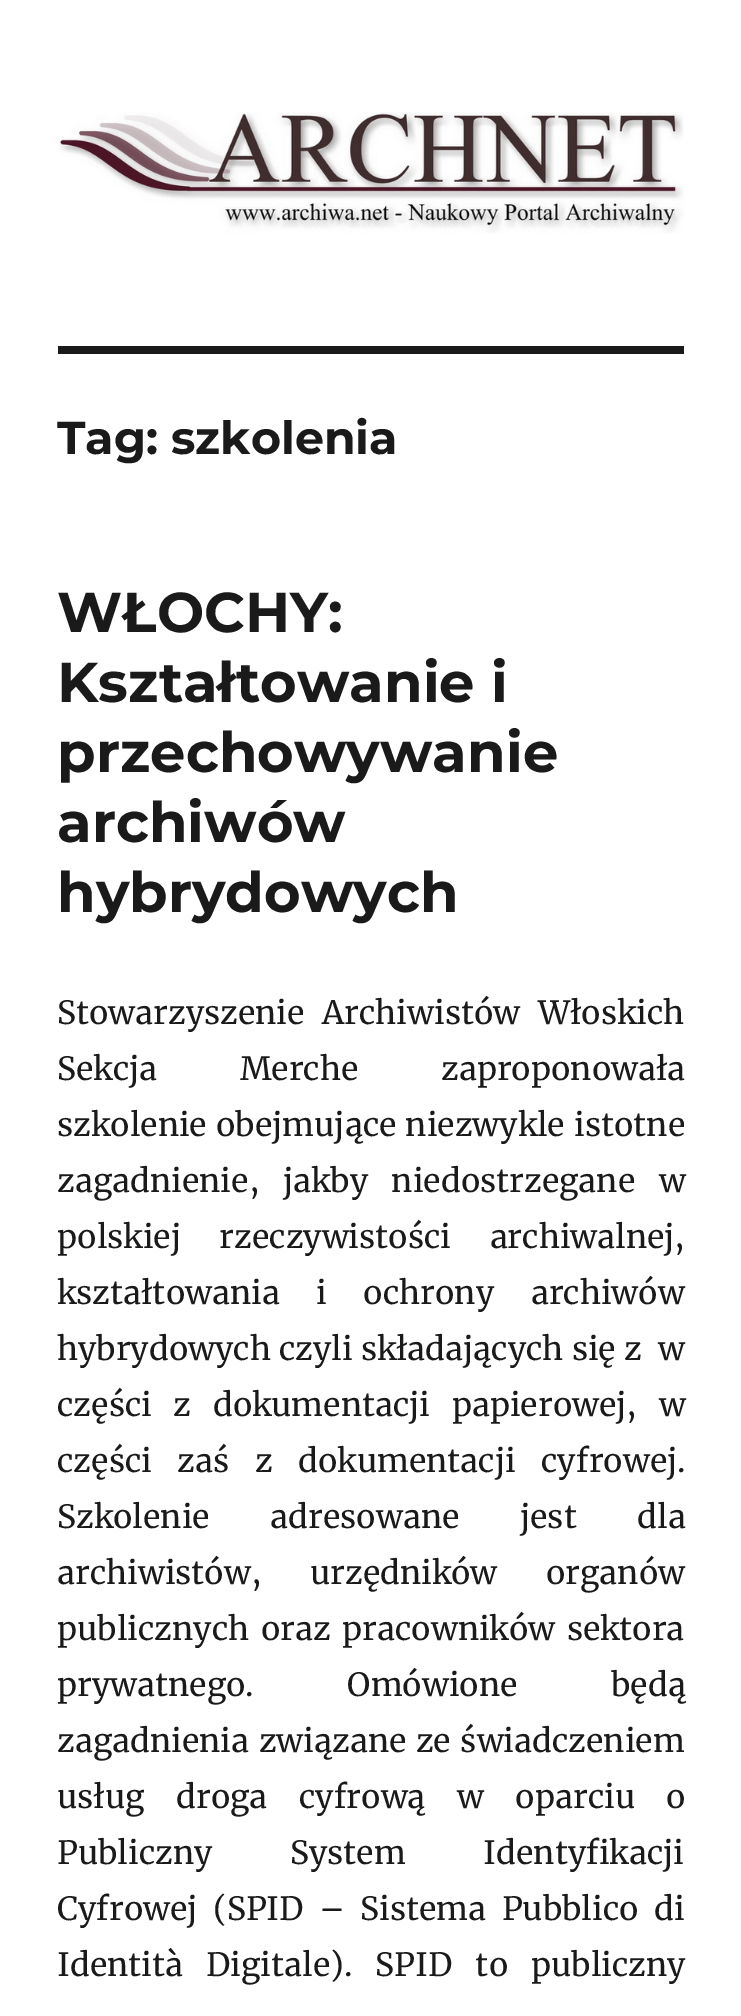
%!PS
<< /PageSize [741 2016] >> setpagedevice
/rgb { dup -16 bitshift 255 div exch dup -8 bitshift 255 and 255 div exch 255 and 255 div setrgbcolor } def
/font { [ exch dup neg 0 0 3 -1 roll 0 0 ] selectfont } def
/text { moveto show } def
/picture { 5 dict begin { /h /w /y /x /name } { exch def } forall
  gsave x y translate w h scale
  w h 8 [w 0 0 h 0 0] name (r) file false 3 colorimage grestore end } def
0 2016 translate 1 -1 scale
4 setmiterlimit
/s1 { /Montserrat-Bold 46 font 16#1A1A1A rgb } def
/s2 { /Montserrat-Bold 56 font 16#1A1A1A rgb } def
16#FFFFFF rgb
0 0 741 2016 rectfill
(pic1.raw) 58 112 626 122 picture
16#1A1A1A rgb
58 346 626 8 rectfill
s1
(Tag: szkolenia) 57 454 text
s2
(WŁOCHY:) 57 632 text
(Kształtowanie i) 57 702 text
(przechowywanie) 57 772 text
(archiwów) 57 842 text
(hybrydowych) 57 912 text
/Merriweather-Regular 32 font
57 1024 moveto 10 0 32 (Stowarzyszenie Archiwistów Włoskich) widthshow
57 1080 moveto 75 0 32 (Sekcja Merche zaproponowała) widthshow
57 1136 moveto 1.5 0 32 (szkolenie obejmujące niezwykle istotne) widthshow
57 1192 moveto 16 0 32 (zagadnienie, jakby niedostrzegane w) widthshow
57 1248 moveto 31 0 32 (polskiej rzeczywistości archiwalnej,) widthshow
57 1304 moveto 29 0 32 (kształtowania i ochrony archiwów) widthshow
57 1360 moveto 0.5 0 32 (hybrydowych czyli składających się z  w) widthshow
57 1416 moveto 14 0 32 (części z dokumentacji papierowej, w) widthshow
57 1472 moveto 18 0 32 (części zaś z dokumentacji cyfrowej.) widthshow
57 1528 moveto 53 0 32 (Szkolenie adresowane jest dla) widthshow
57 1584 moveto 41 0 32 (archiwistów, urzędników organów) widthshow
57 1640 moveto 4 0 32 (publicznych oraz pracowników sektora) widthshow
57 1696 moveto 86 0 32 (prywatnego. Omówione będą) widthshow
57 1752 moveto 2 0 32 (zagadnienia związane ze świadczeniem) widthshow
57 1808 moveto 24 0 32 (usług droga cyfrową w oparciu o) widthshow
57 1864 moveto 70 0 32 (Publiczny System Identyfikacji) widthshow
57 1920 moveto 7.75 0 32 (Cyfrowej \(SPID – Sistema Pubblico di) widthshow
57 1976 moveto 15.5 0 32 (Identità Digitale\). SPID to publiczny) widthshow
showpage
